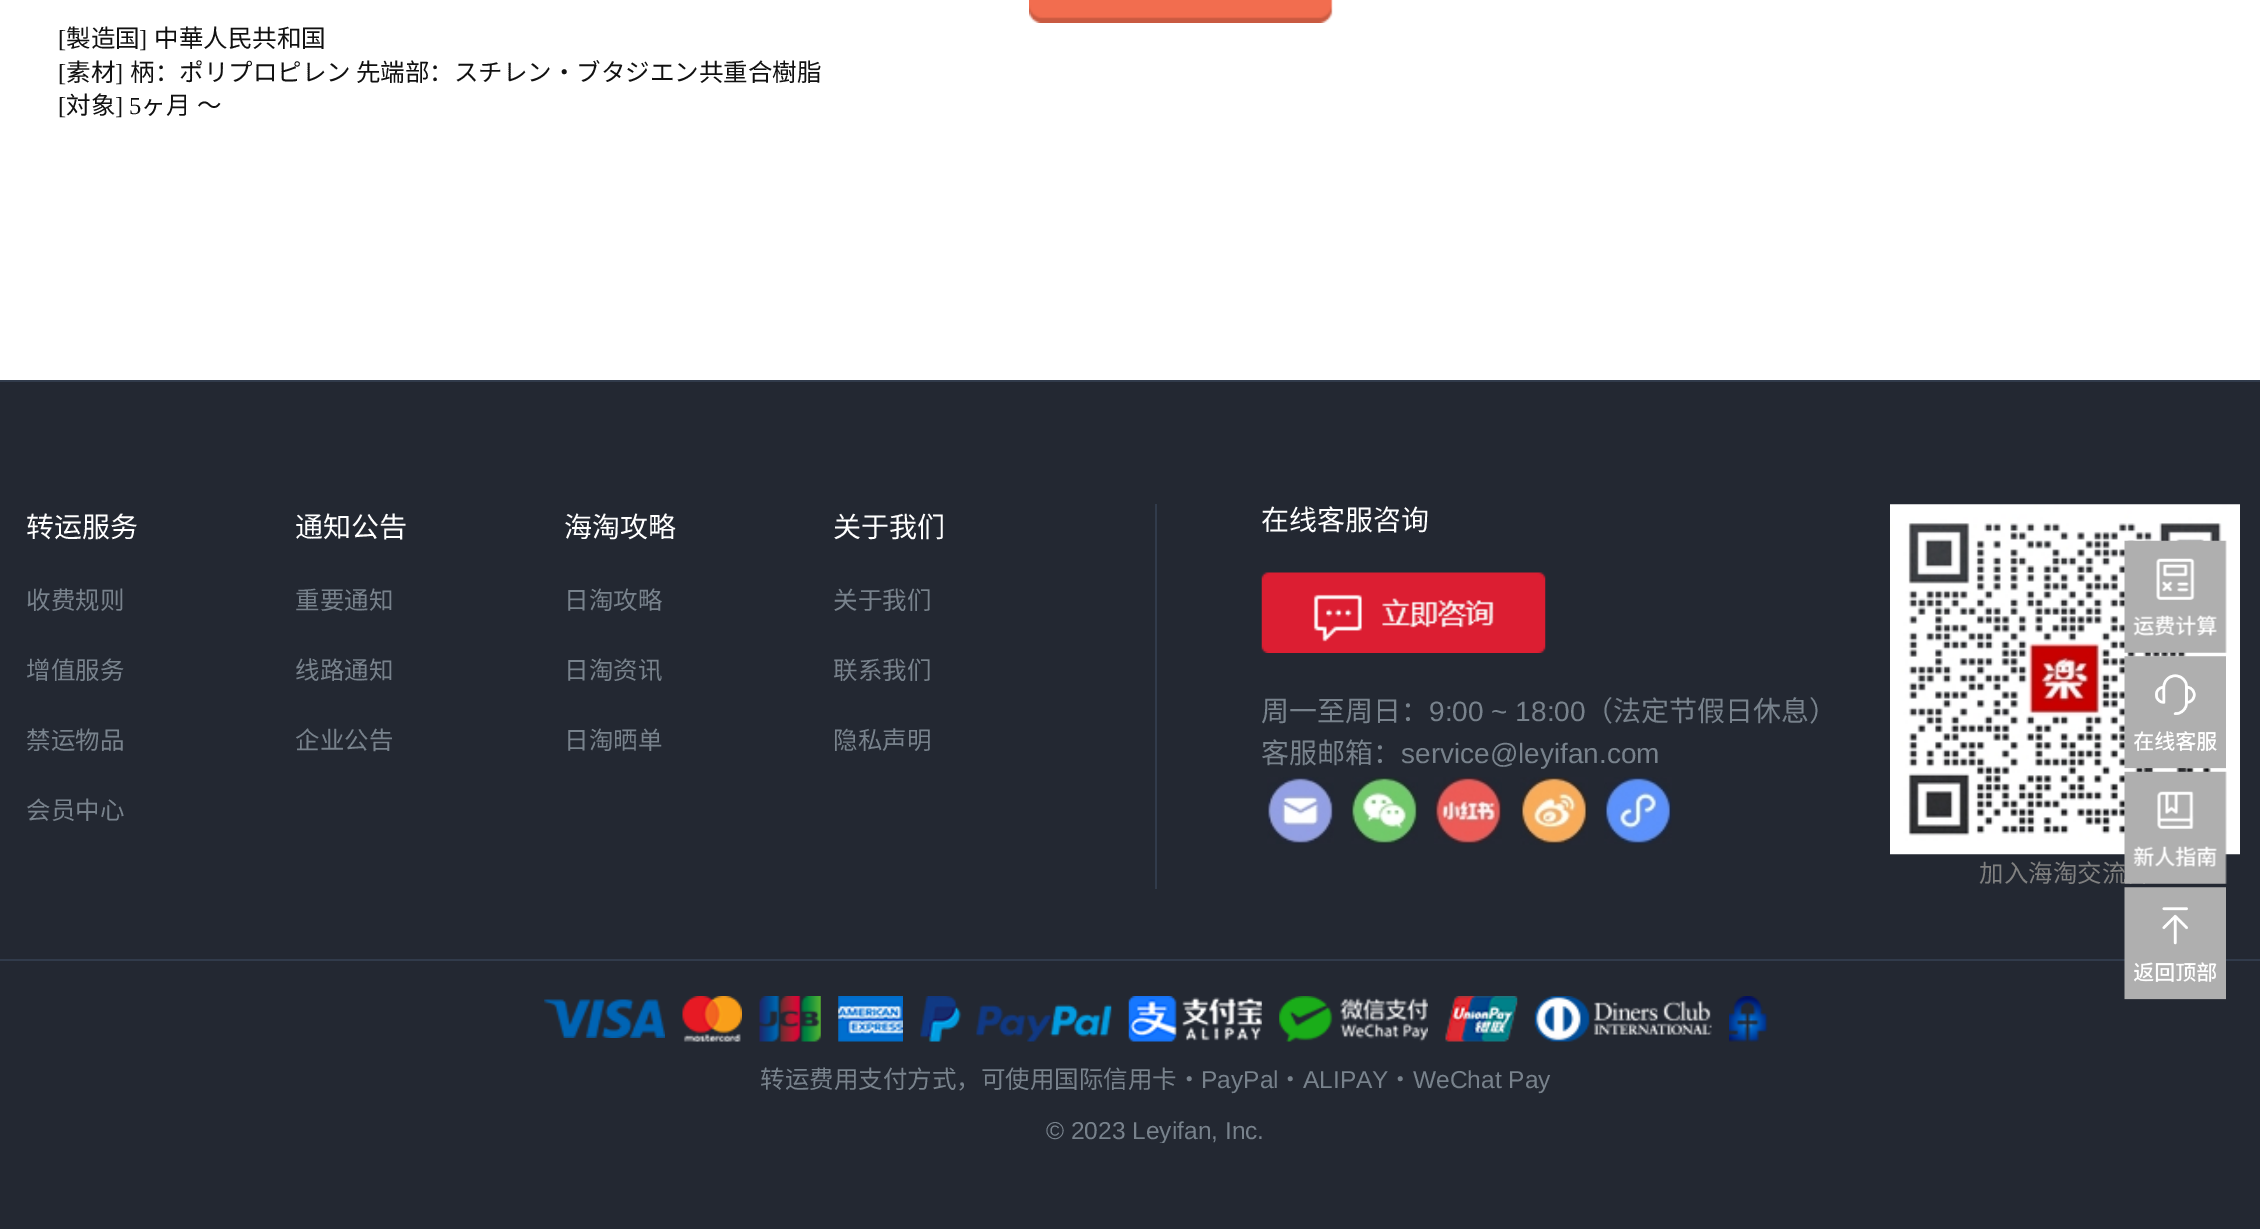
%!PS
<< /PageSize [2260 1229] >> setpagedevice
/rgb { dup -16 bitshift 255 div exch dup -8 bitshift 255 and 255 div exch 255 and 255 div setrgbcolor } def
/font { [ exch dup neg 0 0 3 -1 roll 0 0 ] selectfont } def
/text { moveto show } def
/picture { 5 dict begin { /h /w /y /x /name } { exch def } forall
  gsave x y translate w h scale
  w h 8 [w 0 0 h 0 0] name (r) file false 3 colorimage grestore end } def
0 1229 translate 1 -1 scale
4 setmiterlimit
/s1 { /LiberationSerif-Regular 24.5 font 16#111111 rgb } def
/s2 { /NotoSansCJKSC-Regular 24.5 font 16#111111 rgb } def
/s3 { /NotoSansCJKSC-Regular 28 font 16#FFFFFF rgb } def
/s4 { /NotoSansCJKSC-Regular 24.5 font 16#78828C rgb } def
/s5 { /NotoSansCJKSC-Regular 28 font 16#78828C rgb } def
/s6 { /LiberationSans-Regular 28 font 16#78828C rgb } def
/s7 { /NotoSansCJKSC-Regular 24.5 font 16#808080 rgb } def
/s8 { /LiberationSans-Regular 24.5 font 16#78828C rgb } def
16#FFFFFF rgb
0 0 2260 1229 rectfill
(pic1.raw) 1029 0 304 23 picture
s1
([) 58 47 text
s2
(製造国) 66 47 text
s1
(]) 139 47 text
s2
(中華人民共和国) 154 47 text
s1
([) 58 81 text
s2
(素材) 66 81 text
s1
(]) 115 81 text
s2
(柄：ポリプロピレン 先端部：スチレン・ブタジエン共重合樹脂) 130 81 text
s1
([) 58 114 text
s2
(対象) 66 114 text
s1
(] 5) 115 114 text
s2
(ヶ月) 141 114 text
(～) 197 114 text
16#232832 rgb
0 382 2260 847 rectfill
16#313B4B rgb
0 380 2260 2 rectfill
0 959 2260 2 rectfill
s3
(转运服务) 26 537 text
s4
(收费规则) 26 609 text
(增值服务) 26 679 text
(禁运物品) 26 749 text
(会员中心) 26 819 text
s3
(通知公告) 295 537 text
s4
(重要通知) 295 609 text
(线路通知) 295 679 text
(企业公告) 295 749 text
s3
(海淘攻略) 564 537 text
s4
(日淘攻略) 564 609 text
(日淘资讯) 564 679 text
(日淘晒单) 564 749 text
s3
(关于我们) 833 537 text
s4
(关于我们) 833 609 text
(联系我们) 833 679 text
(隐私声明) 833 749 text
16#313B4B rgb
1155 504 2 385 rectfill
s3
(在线客服咨询) 1261 530 text
(pic2.raw) 1261 572 285 81 picture
s5
(周一至周日：) 1261 721 text
s6
(9:00 ~ 18:00) 1429 721 text
s5
(（法定节假日休息）) 1585 721 text
(客服邮箱：) 1261 763 text
s6
(service@leyifan.com) 1401 763 text
(pic3.raw) 1267 777 67 67 picture
(pic4.raw) 1351 777 67 67 picture
(pic5.raw) 1434 777 68 67 picture
(pic6.raw) 1520 777 68 68 picture
(pic7.raw) 1604 777 68 67 picture
(pic8.raw) 1890 504 350 351 picture
s7
(加入海淘交流) 1979 882 text
(pic9.raw) 544 999 121 39 picture
(pic10.raw) 682 996 60 46 picture
(pic11.raw) 759 996 62 46 picture
(pic12.raw) 838 996 65 46 picture
(pic13.raw) 920 996 192 46 picture
(pic14.raw) 1128 996 134 46 picture
(pic15.raw) 1279 996 149 46 picture
(pic16.raw) 1445 996 73 46 picture
(pic17.raw) 1534 996 178 46 picture
(pic18.raw) 1729 996 39 46 picture
s4
(转运费用支付方式，可使用国际信用卡・) 760 1088 text
s8
(PayPal) 1201 1088 text
s4
(・) 1278 1088 text
s8
(ALIPAY) 1303 1088 text
s4
(・) 1388 1088 text
s8
(WeChat Pay) 1413 1088 text
gsave
0 434 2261 709 rectclip
(© 2023 Leyifan, Inc.) 1046 1139 text
grestore
(pic19.raw) 2124 540 103 113 picture
(pic20.raw) 2124 656 102 113 picture
(pic21.raw) 2124 771 103 113 picture
(pic22.raw) 2124 887 102 113 picture
showpage
